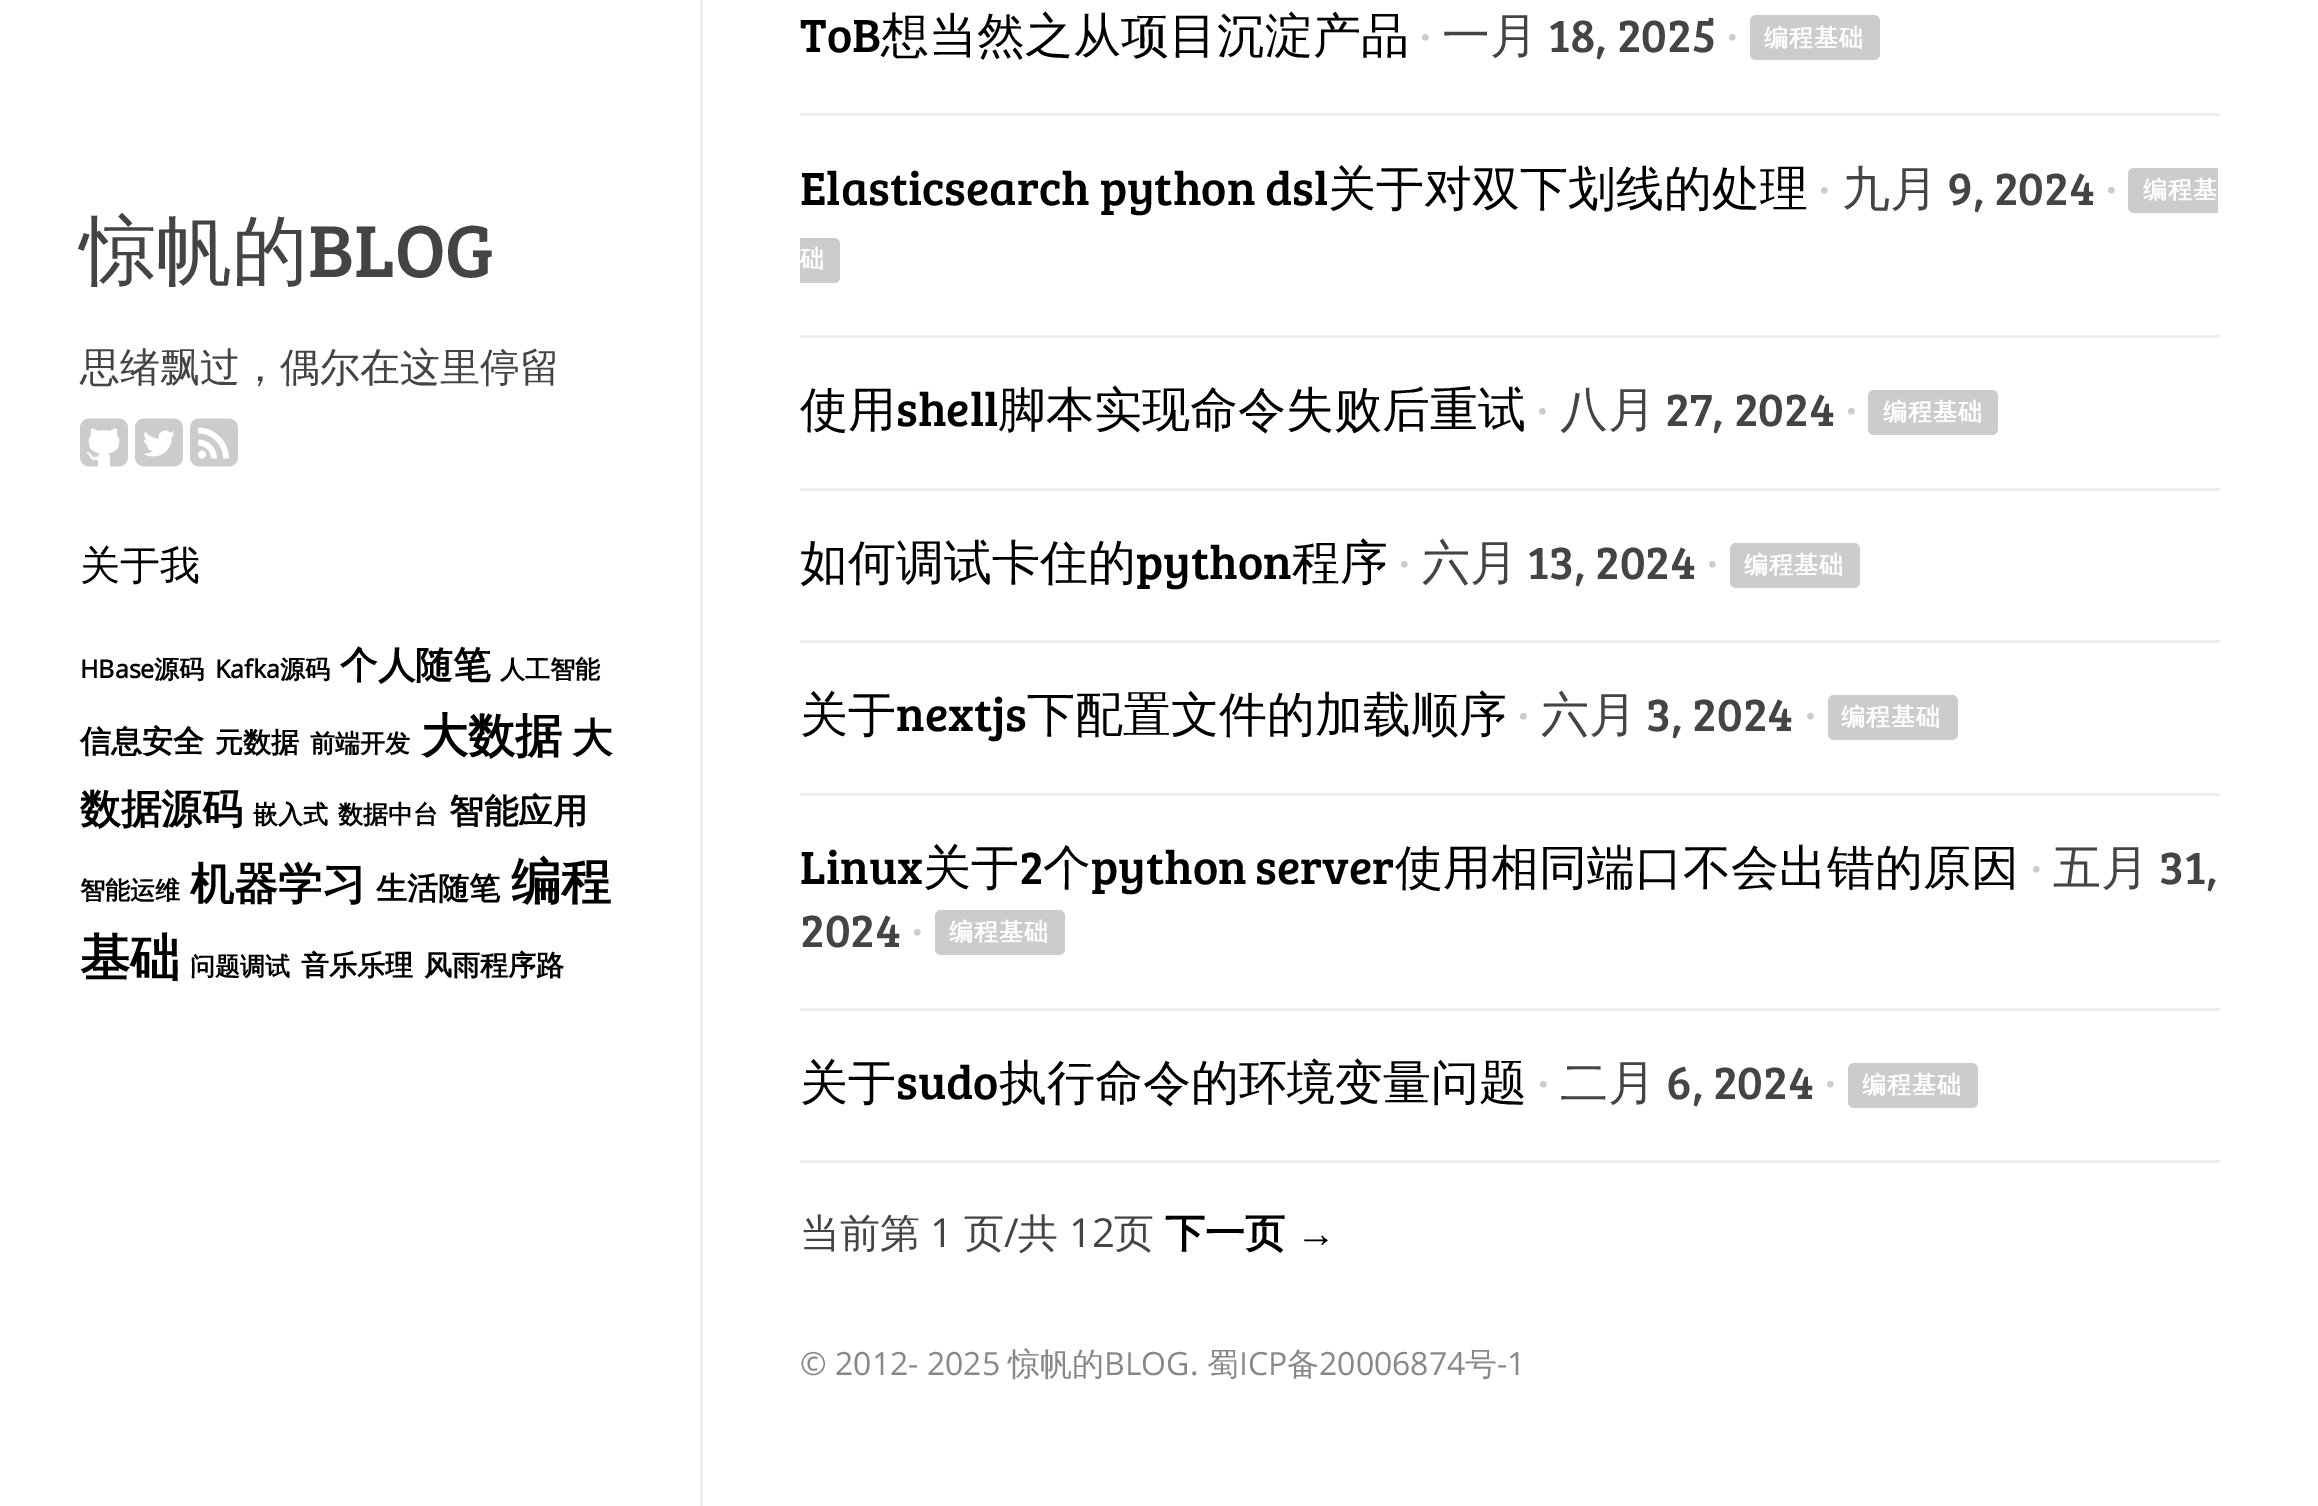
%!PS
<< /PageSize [2318 1506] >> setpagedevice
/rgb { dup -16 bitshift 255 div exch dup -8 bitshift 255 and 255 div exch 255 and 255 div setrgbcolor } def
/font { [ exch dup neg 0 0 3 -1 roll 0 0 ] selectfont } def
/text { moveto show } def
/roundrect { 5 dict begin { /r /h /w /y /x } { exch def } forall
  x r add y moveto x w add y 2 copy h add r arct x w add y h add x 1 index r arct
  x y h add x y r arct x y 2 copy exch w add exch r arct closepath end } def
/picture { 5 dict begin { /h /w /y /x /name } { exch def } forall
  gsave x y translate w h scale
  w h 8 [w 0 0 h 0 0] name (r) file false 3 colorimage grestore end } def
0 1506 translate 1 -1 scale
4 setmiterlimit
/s1 { /WenQuanYiZenHei-Medium 76 font 16#444444 rgb } def
/s2 { /BreeSerif-Regular 76 font 16#444444 rgb } def
/s3 { /WenQuanYiZenHei-Medium 40 font 16#444444 rgb } def
/s4 { /WenQuanYiZenHei-Medium 40 font 16#000000 rgb } def
/s5 { /OpenSans-Bold 25 font 16#000000 rgb } def
/s6 { /WenQuanYiZenHei-Bold 25 font 16#000000 rgb } def
/s7 { /WenQuanYiZenHei-Bold 37.5 font 16#000000 rgb } def
/s8 { /WenQuanYiZenHei-Bold 31 font 16#000000 rgb } def
/s9 { /WenQuanYiZenHei-Bold 28 font 16#000000 rgb } def
/s10 { /WenQuanYiZenHei-Bold 47 font 16#000000 rgb } def
/s11 { /WenQuanYiZenHei-Bold 40.5 font 16#000000 rgb } def
/s12 { /WenQuanYiZenHei-Bold 34.5 font 16#000000 rgb } def
/s13 { /WenQuanYiZenHei-Bold 44 font 16#000000 rgb } def
/s14 { /WenQuanYiZenHei-Bold 50 font 16#000000 rgb } def
/s15 { /BreeSerif-Regular 48 font 16#000000 rgb } def
/s16 { /WenQuanYiZenHei-Medium 48 font 16#000000 rgb } def
/s17 { /BreeSerif-Regular 48 font 16#CCCCCC rgb } def
/s18 { /WenQuanYiZenHei-Medium 48 font 16#444444 rgb } def
/s19 { /BreeSerif-Regular 48 font 16#444444 rgb } def
/s20 { /OpenSans-Regular 40 font 16#444444 rgb } def
/s21 { /WenQuanYiZenHei-Bold 40 font 16#000000 rgb } def
/s22 { /LiberationSans-Bold 40 font 16#000000 rgb } def
/s23 { /OpenSans-Regular 32 font 16#888888 rgb } def
/s24 { /WenQuanYiZenHei-Medium 32 font 16#888888 rgb } def
16#FFFFFF rgb
0 0 2318 1506 rectfill
16#EEEEEE rgb
700 0 3 1506 rectfill
s1
(惊帆的) 80 277 text
s2
(BLOG) 308 277 text
s3
(思绪飘过，偶尔在这里停留) 80 381 text
(pic1.raw) 80 418 48 49 picture
(pic2.raw) 135 418 48 49 picture
(pic3.raw) 190 418 48 49 picture
s4
(关于我) 80 579 text
s5
(HBase) 80 678 text
s6
(源码) 154 678 text
s5
(Kafka) 215 678 text
s6
(源码) 280 678 text
s7
(个人随笔) 340 678 text
s6
(人工智能) 500 678 text
s8
(信息安全) 80 752 text
s9
(元数据) 215 752 text
s6
(前端开发) 310 752 text
s10
(大数据) 421 752 text
s11
(大) 572 752 text
(数据源码) 80 823 text
s6
(嵌入式) 253 823 text
(数据中台) 338 823 text
s12
(智能应用) 449 823 text
s6
(智能运维) 80 899 text
s13
(机器学习) 190 899 text
s8
(生活随笔) 376 899 text
s14
(编程) 511 899 text
(基础) 80 975 text
s6
(问题调试) 190 975 text
s9
(音乐乐理) 301 975 text
(风雨程序路) 424 975 text
16#EEEEEE rgb
800 113 1420 3 rectfill
s15
(ToB) 800 52 text
s16
(想当然之从项目沉淀产品) 881 52 text
s17
(·) 1418 52 text
s18
(一月) 1442 52 text
s19
(18, 2025) 1548 52 text
s17
(·) 1725 52 text
1750 15 130 45 6 roundrect fill
/WenQuanYiZenHei-Bold 24 font
16#FFFFFF rgb
1764 46 moveto 1 0 (编程基础) ashow
16#EEEEEE rgb
800 335 1420 3 rectfill
s15
(Elasticsearch python dsl) 800 205 text
s16
(关于对双下划线的处理) 1328 205 text
s17
(·) 1817 205 text
s18
(九月) 1842 205 text
s19
(9, 2024) 1947 205 text
s17
(·) 2104 205 text
2134 168 moveto 2218 168 lineto 2218 213 lineto 2134 213 lineto 2130.5 213 2128 210.5 2128 207 curveto 2128 174 lineto 2128 170.5 2130.5 168 2134 168 curveto closepath fill
/WenQuanYiZenHei-Bold 24 font
16#FFFFFF rgb
2143 198 moveto 1 0 (编程基) ashow
16#CCCCCC rgb
800 238 moveto 834 238 lineto 837.5 238 840 240.5 840 244 curveto 840 277 lineto 840 280.5 837.5 283 834 283 curveto 800 283 lineto closepath fill
16#FFFFFF rgb
800 267 moveto 1 0 (础) ashow
16#EEEEEE rgb
800 488 1420 3 rectfill
s16
(使用) 800 426 text
s15
(shell) 896 426 text
s16
(脚本实现命令失败后重试) 998 426 text
s17
(·) 1535 426 text
s18
(八月) 1560 426 text
s19
(27, 2024) 1665 426 text
s17
(·) 1844 426 text
1868 390 130 45 6 roundrect fill
/WenQuanYiZenHei-Bold 24 font
16#FFFFFF rgb
1883 420 moveto 1 0 (编程基础) ashow
16#EEEEEE rgb
800 640 1420 3 rectfill
s16
(如何调试卡住的) 800 579 text
s15
(python) 1136 579 text
s16
(程序) 1292 579 text
s17
(·) 1397 579 text
s18
(六月) 1422 579 text
s19
(13, 2024) 1527 579 text
s17
(·) 1705 579 text
1730 543 130 45 6 roundrect fill
/WenQuanYiZenHei-Bold 24 font
16#FFFFFF rgb
1744 573 moveto 1 0 (编程基础) ashow
16#EEEEEE rgb
800 793 1420 3 rectfill
s16
(关于) 800 731 text
s15
(nextjs) 896 731 text
s16
(下配置文件的加载顺序) 1027 731 text
s17
(·) 1516 731 text
s18
(六月) 1541 731 text
s19
(3, 2024) 1646 731 text
s17
(·) 1803 731 text
1828 695 130 45 6 roundrect fill
/WenQuanYiZenHei-Bold 24 font
16#FFFFFF rgb
1841 725 moveto 1 0 (编程基础) ashow
16#EEEEEE rgb
800 1008 1420 3 rectfill
s15
(Linux) 800 884 text
s16
(关于) 923 884 text
s15
(2) 1019 884 text
s16
(个) 1043 884 text
/BreeSerif-Regular 48 font
1091 884 moveto -1 0 32 (python server) widthshow
s16
(使用相同端口不会出错的原因) 1395 884 text
s17
(·) 2029 884 text
s18
(五月) 2053 884 text
s19
(31,) 2159 884 text
(2024) 800 947 text
s17
(·) 910 947 text
935 910 130 45 6 roundrect fill
/WenQuanYiZenHei-Bold 24 font
16#FFFFFF rgb
949 940 moveto 1 0 (编程基础) ashow
16#EEEEEE rgb
800 1160 1420 3 rectfill
s16
(关于) 800 1099 text
s15
(sudo) 896 1099 text
s16
(执行命令的环境变量问题) 999 1099 text
s17
(·) 1536 1099 text
s18
(二月) 1560 1099 text
s19
(6, 2024) 1666 1099 text
s17
(·) 1823 1099 text
1848 1063 130 45 6 roundrect fill
/WenQuanYiZenHei-Bold 24 font
16#FFFFFF rgb
1862 1093 moveto 1 0 (编程基础) ashow
s3
(当前第) 800 1247 text
s20
(1) 930 1247 text
s3
(页) 964 1247 text
s20
(/) 1004 1247 text
s3
(共) 1018 1247 text
s20
(12) 1069 1247 text
s3
(页) 1114 1247 text
s21
(下一页) 1165 1247 text
s22
(→) 1296 1247 text
s23
(© 2012- 2025) 800 1375 text
s24
(惊帆的) 1008 1375 text
s23
(BLOG.) 1104 1375 text
s24
(蜀) 1207 1375 text
s23
(ICP) 1239 1375 text
s24
(备) 1287 1375 text
s23
(20006874) 1319 1375 text
s24
(号) 1465 1375 text
s23
(-1) 1497 1375 text
showpage
